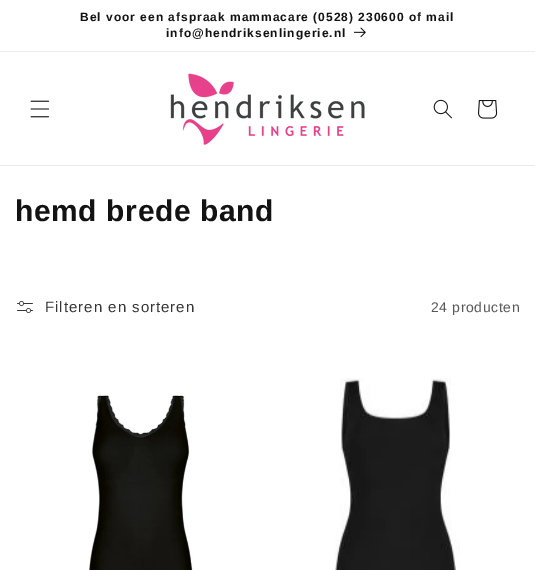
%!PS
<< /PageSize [535 570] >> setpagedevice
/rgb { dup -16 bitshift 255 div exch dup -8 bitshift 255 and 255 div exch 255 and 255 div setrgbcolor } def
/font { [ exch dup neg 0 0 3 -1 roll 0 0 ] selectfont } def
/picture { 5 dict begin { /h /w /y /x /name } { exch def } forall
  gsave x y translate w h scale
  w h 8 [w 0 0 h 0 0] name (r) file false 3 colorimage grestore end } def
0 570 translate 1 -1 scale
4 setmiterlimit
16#FFFFFF rgb
0 0 535 570 rectfill
16#ECECEC rgb
0 51 535 1 rectfill
/LiberationSans-Bold 12 font
16#121212 rgb
80 21 moveto 1 0 (Bel voor een afspraak mammacare \(0528\) 230600 of mail) ashow
166 37 moveto 1 0 (info@hendriksenlingerie.nl) ashow
(pic1.raw) 354 27 12 11 picture
16#ECECEC rgb
0 165 535 1 rectfill
(pic2.raw) 30 100 20 18 picture
(pic3.raw) 170 73 195 72 picture
(pic4.raw) 433 99 19 20 picture
(pic5.raw) 478 100 20 19 picture
/LiberationSans-Bold 30 font
16#121212 rgb
15 221 moveto 0.6 0 (hemd brede band) ashow
(pic6.raw) 17 301 16 12 picture
/LiberationSans-Regular 15 font
16#363636 rgb
45 312 moveto 1 0 (Filteren en sorteren) ashow
/LiberationSans-Regular 14 font
16#595959 rgb
431 312 moveto 0.6 0 (24 producten) ashow
(pic7.raw) 88 395 105 175 picture
(pic8.raw) 335 378 125 192 picture
showpage
